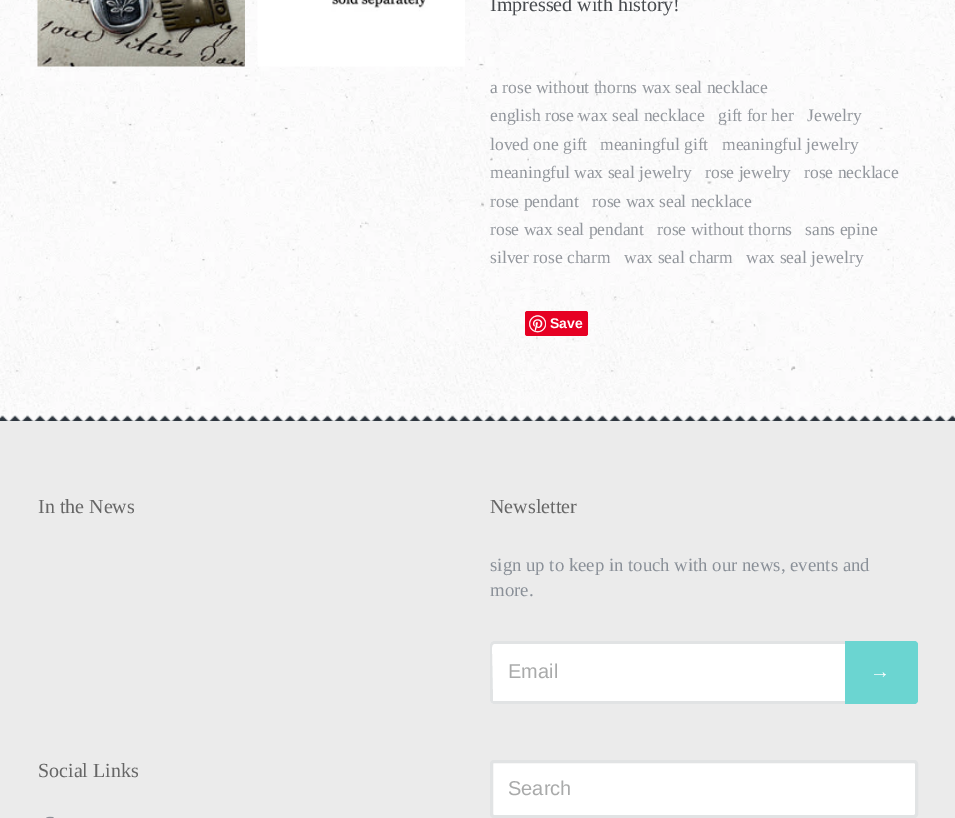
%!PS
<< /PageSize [955 818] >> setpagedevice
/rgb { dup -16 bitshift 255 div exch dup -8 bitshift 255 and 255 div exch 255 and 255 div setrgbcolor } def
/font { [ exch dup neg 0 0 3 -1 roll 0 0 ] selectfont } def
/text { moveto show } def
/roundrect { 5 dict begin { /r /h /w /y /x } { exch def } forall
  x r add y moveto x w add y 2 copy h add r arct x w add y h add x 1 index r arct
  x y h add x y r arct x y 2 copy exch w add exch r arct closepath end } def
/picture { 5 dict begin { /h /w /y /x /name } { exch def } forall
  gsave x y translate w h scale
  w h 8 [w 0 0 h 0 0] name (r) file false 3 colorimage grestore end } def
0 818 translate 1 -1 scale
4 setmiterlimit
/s1 { /LiberationSerif-Regular 20 font 16#484B4F rgb } def
/s2 { /LiberationSerif-Regular 17.5 font 16#93979D rgb } def
/s3 { /LiberationSans-Bold 14 font 16#FFFFFF rgb } def
/s4 { /LiberationSerif-Regular 20 font 16#666666 rgb } def
/s5 { /LiberationSerif-Regular 18.75 font 16#8A9098 rgb } def
/s6 { /LiberationSans-Regular 20 font 16#A9AAAA rgb } def
/s7 { /LiberationSerif-Regular 20 font 16#FFFFFF rgb } def
16#FFFFFF rgb
0 0 955 818 rectfill
(pic1.raw) 0 0 955 421 picture
(pic2.raw) 0 415 955 6 picture
(pic3.raw) 37 0 208 67 picture
(pic4.raw) 257 0 208 67 picture
s1
(Impressed with history!) 490 11 text
s2
(a rose without thorns wax seal necklace) 490 93 text
(english rose wax seal necklace) 490 121 text
(gift for her) 718 121 text
(Jewelry) 807 121 text
(loved one gift) 490 150 text
(meaningful gift) 600 150 text
(meaningful jewelry) 722 150 text
(meaningful wax seal jewelry) 490 178 text
(rose jewelry) 705 178 text
(rose necklace) 804 178 text
(rose pendant) 490 207 text
(rose wax seal necklace) 592 207 text
(rose wax seal pendant) 490 235 text
(rose without thorns) 657 235 text
(sans epine) 805 235 text
(silver rose charm) 490 263 text
(wax seal charm) 624 263 text
(wax seal jewelry) 746 263 text
16#E60023 rgb
525 311 63 25 2.5 roundrect fill
(pic5.raw) 529 315 17 18 picture
s3
(Save) 550 328 text
16#EBEBEB rgb
0 421 955 397 rectfill
s4
(In the News) 38 513 text
(Newsletter) 490 513 text
s5
(sign up to keep in touch with our news, events and) 490 571 text
(more.) 490 596 text
16#FFFFFF rgb
494 641 moveto 845 641 lineto 845 704 lineto 494 704 lineto 492 704 490 702 490 700 curveto 490 645 lineto 490 643 492 641 494 641 curveto closepath fill
16#E1E3E4 rgb
494 641 moveto 845 641 lineto 845 704 lineto 494 704 lineto 492 704 490 702 490 700 curveto 490 645 lineto 490 643 492 641 494 641 curveto closepath 494 644 moveto 845 644 lineto 845 701 lineto 493 701 lineto 492 654 lineto 492 652 491 644 494 644 curveto closepath eofill
s6
(Email) 508 678 text
16#6BD5D1 rgb
845 641 moveto 914 641 lineto 916 641 918 643 918 645 curveto 918 700 lineto 918 702 916 704 914 704 curveto 845 704 lineto closepath fill
845 641 moveto 914 641 lineto 916 641 918 643 918 645 curveto 918 700 lineto 918 702 916 704 914 704 curveto 845 704 lineto closepath 845 644 moveto 914 644 lineto 914 644 915 644 915 645 curveto 915 700 lineto 915 701 914 701 914 701 curveto 845 701 lineto closepath eofill
s7
(→) 870 678 text
s4
(Social Links) 38 777 text
(pic6.raw) 46 816 8 2 picture
16#FFFFFF rgb
491.5 761.5 425 55 2.5 roundrect gsave fill grestore
16#E1E3E4 rgb
3 setlinewidth
stroke
s6
(Search) 508 795 text
showpage
